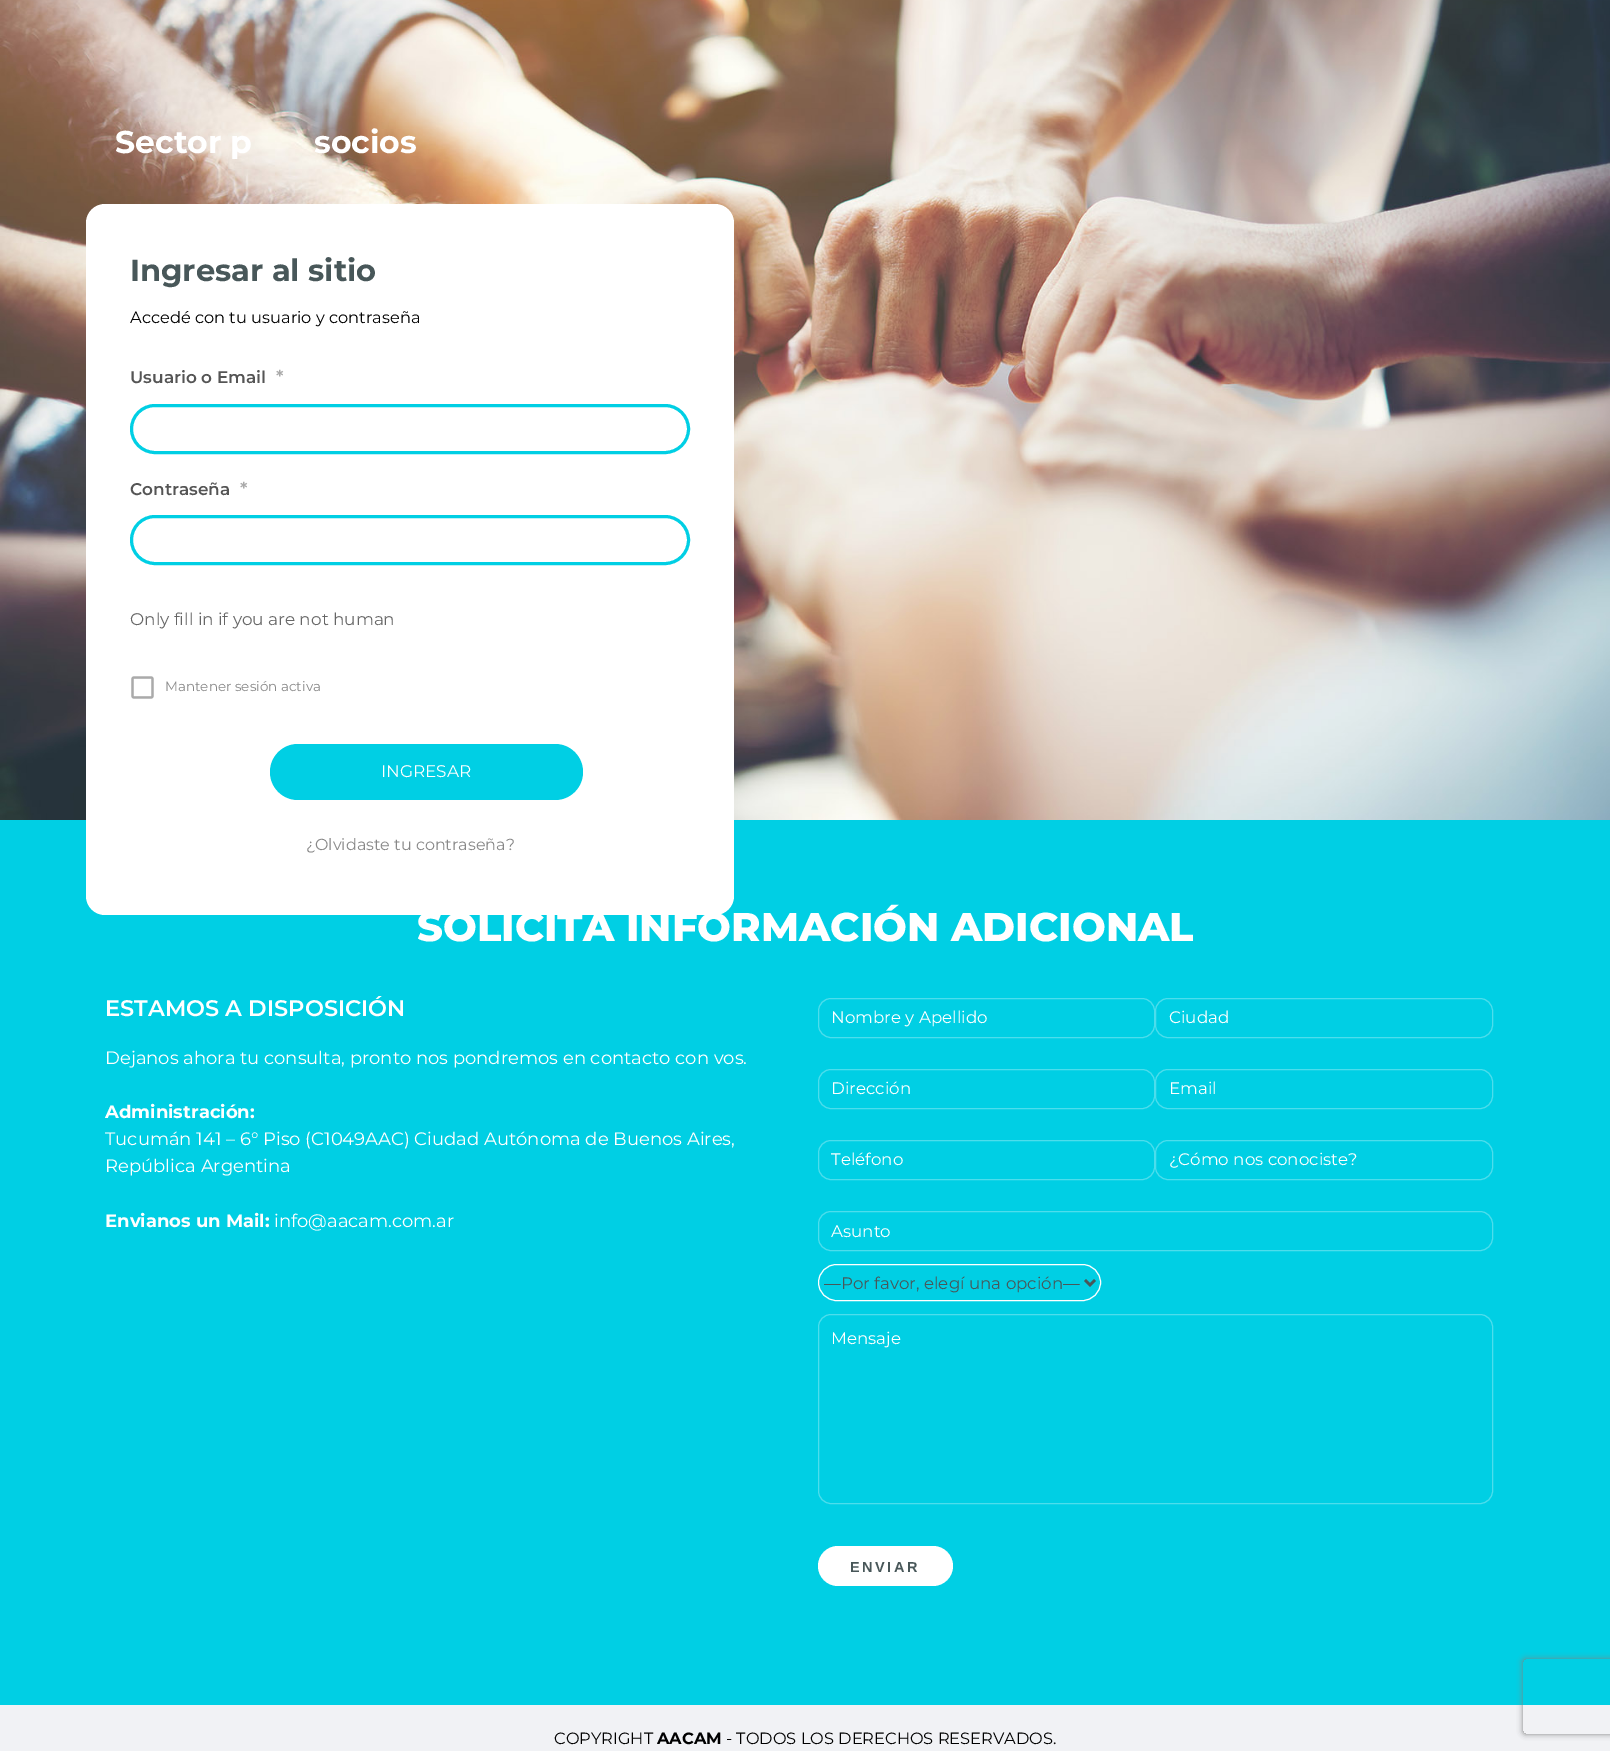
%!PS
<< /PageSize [1610 1751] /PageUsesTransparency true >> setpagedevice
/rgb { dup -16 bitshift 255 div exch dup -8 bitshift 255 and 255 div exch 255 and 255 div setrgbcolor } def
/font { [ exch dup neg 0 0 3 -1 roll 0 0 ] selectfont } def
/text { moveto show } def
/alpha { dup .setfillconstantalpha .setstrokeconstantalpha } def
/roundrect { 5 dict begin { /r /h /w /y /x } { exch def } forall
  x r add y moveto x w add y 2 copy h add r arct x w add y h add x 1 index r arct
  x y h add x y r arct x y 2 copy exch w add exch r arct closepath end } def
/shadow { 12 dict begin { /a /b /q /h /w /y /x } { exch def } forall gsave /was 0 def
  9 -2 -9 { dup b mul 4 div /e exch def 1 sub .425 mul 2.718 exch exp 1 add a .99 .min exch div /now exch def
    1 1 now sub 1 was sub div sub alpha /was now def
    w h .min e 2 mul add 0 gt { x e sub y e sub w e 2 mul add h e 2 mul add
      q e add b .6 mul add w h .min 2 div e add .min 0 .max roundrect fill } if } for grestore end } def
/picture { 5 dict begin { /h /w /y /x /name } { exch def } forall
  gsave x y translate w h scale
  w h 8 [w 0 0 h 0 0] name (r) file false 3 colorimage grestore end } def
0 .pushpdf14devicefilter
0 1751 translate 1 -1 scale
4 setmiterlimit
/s1 { /Montserrat-Bold 31.5 font 16#FFFFFF rgb } def
/s2 { /Montserrat-Bold 30.5 font 16#485759 rgb } def
/s3 { /Montserrat-Regular 16.25 font 16#000000 rgb } def
/s4 { /Montserrat-SemiBold 16.9 font 16#555555 rgb } def
/s5 { /Montserrat-SemiBold 18 font 16#AAAAAA rgb } def
/s6 { /Montserrat-Regular 16.9 font 16#666666 rgb } def
/s7 { /Montserrat-Regular 13.5 font 16#888888 rgb } def
/s8 { /Montserrat-Regular 16.9 font 16#FFFFFF rgb } def
/s9 { /Montserrat-Regular 16 font 16#888888 rgb } def
/s10 { /Montserrat-ExtraBold 40 font 16#FFFFFF rgb } def
/s11 { /Montserrat-SemiBold 22.5 font 16#FFFFFF rgb } def
/s12 { /Montserrat-Regular 18 font 16#FFFFFF rgb } def
/s13 { /Montserrat-Bold 18 font 16#FFFFFF rgb } def
/s14 { /Montserrat-Regular 16.7 font 16#FFFFFF rgb } def
/s15 { /Montserrat-Regular 16.7 font 16#485759 rgb } def
/s16 { /Montserrat-Bold 16.25 font 16#000000 rgb } def
16#FFFFFF rgb
0 0 1610 1751 rectfill
(pic1.raw) 0 0 1610 820 picture
s1
(Sector p) 115 153 text
(socios) 314 153 text
16#00CFE4 rgb
0 820 1610 885 rectfill
16#FFFFFF rgb
86 204 648 711 19 roundrect fill
s2
(Ingresar al sitio) 130 281 text
s3
(Accedé con tu usuario y contraseña) 130 323 text
s4
(Usuario o Email) 130 383 text
s5
(*) 276 383 text
16#00CFE4 rgb
3 setlinewidth
131.5 405.5 557 47 23.5 roundrect stroke
s4
(Contraseña) 130 495 text
s5
(*) 240 495 text
16#00CFE4 rgb
131.5 516.5 557 47 23.5 roundrect stroke
s6
(Only fill in if you are not human) 130 625 text
(pic2.raw) 131 676 23 23 picture
s7
(Mantener sesión activa) 165 691 text
16#00CFE4 rgb
270 744 313 56 28 roundrect fill
s8
(INGRESAR) 381 777 text
s9
(¿Olvidaste tu contraseña?) 306 850 text
s10
(SOLICITÁ INFORMACIÓN ADICIONAL) 417 941 text
s11
(ESTAMOS A DISPOSICIÓN) 105 1016 text
s12
(Dejanos ahora tu consulta, pronto nos pondremos en contacto con vos.) 105 1064 text
s13
(Administración:) 105 1118 text
s12
(Tucumán 141 – 6° Piso \(C1049AAC\) Ciudad Autónoma de Buenos Aires,) 105 1145 text
(República Argentina) 105 1172 text
s13
(Envianos un Mail:) 105 1227 text
s12
(info@aacam.com.ar) 274 1227 text
16#4DDDEC rgb
1 setlinewidth
818.5 998.5 336 39 12.5 roundrect stroke
s14
(Nombre y Apellido) 831 1023 text
16#4DDDEC rgb
1155.5 998.5 337 39 12.5 roundrect stroke
s14
(Ciudad) 1169 1023 text
16#4DDDEC rgb
818.5 1069.5 336 39 12.5 roundrect stroke
s14
(Dirección) 831 1094 text
16#4DDDEC rgb
1155.5 1069.5 337 39 12.5 roundrect stroke
s14
(Email) 1169 1094 text
16#4DDDEC rgb
818.5 1140.5 336 39 12.5 roundrect stroke
s14
(Teléfono) 831 1165 text
16#4DDDEC rgb
1155.5 1140.5 337 39 12.5 roundrect stroke
s14
(¿Cómo nos conociste?) 1169 1165 text
16#4DDDEC rgb
818.5 1211.5 674 39 12.5 roundrect stroke
s14
(Asunto) 831 1237 text
818.5 1264.5 282 36 18 roundrect stroke
16#485759 rgb
2.5 setlinewidth
1085 1280 moveto 1090 1285 lineto 1095 1280 lineto stroke
(—Por favor, elegí una opción—) 824 1289 text
16#4DDDEC rgb
1 setlinewidth
818.5 1314.5 674 189 12.5 roundrect stroke
s14
(Mensaje) 831 1344 text
818 1546 135 40 20 roundrect fill
/LiberationSans-Bold 14.5 font
16#485759 rgb
850 1572 moveto 2.5 0 (ENVIAR) ashow
16#F1F2F5 rgb
0 1705 1610 46 rectfill
s3
(COPYRIGHT) 554 1744 text
s16
(AACAM) 657 1744 text
s3
(- TODOS LOS DERECHOS RESERVADOS.) 726 1744 text
gsave
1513 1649 moveto 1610 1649 lineto 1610 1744 lineto 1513 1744 lineto closepath 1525.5 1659 moveto 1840.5 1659 lineto 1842 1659 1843 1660 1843 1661.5 curveto 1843 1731.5 lineto 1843 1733 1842 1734 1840.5 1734 curveto 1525.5 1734 lineto 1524 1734 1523 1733 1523 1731.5 curveto 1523 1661.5 lineto 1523 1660 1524 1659 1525.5 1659 curveto closepath eoclip newpath
16#808080 rgb
1523 1659 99 75 2.5 3 1 shadow
grestore
.poppdf14devicefilter showpage
